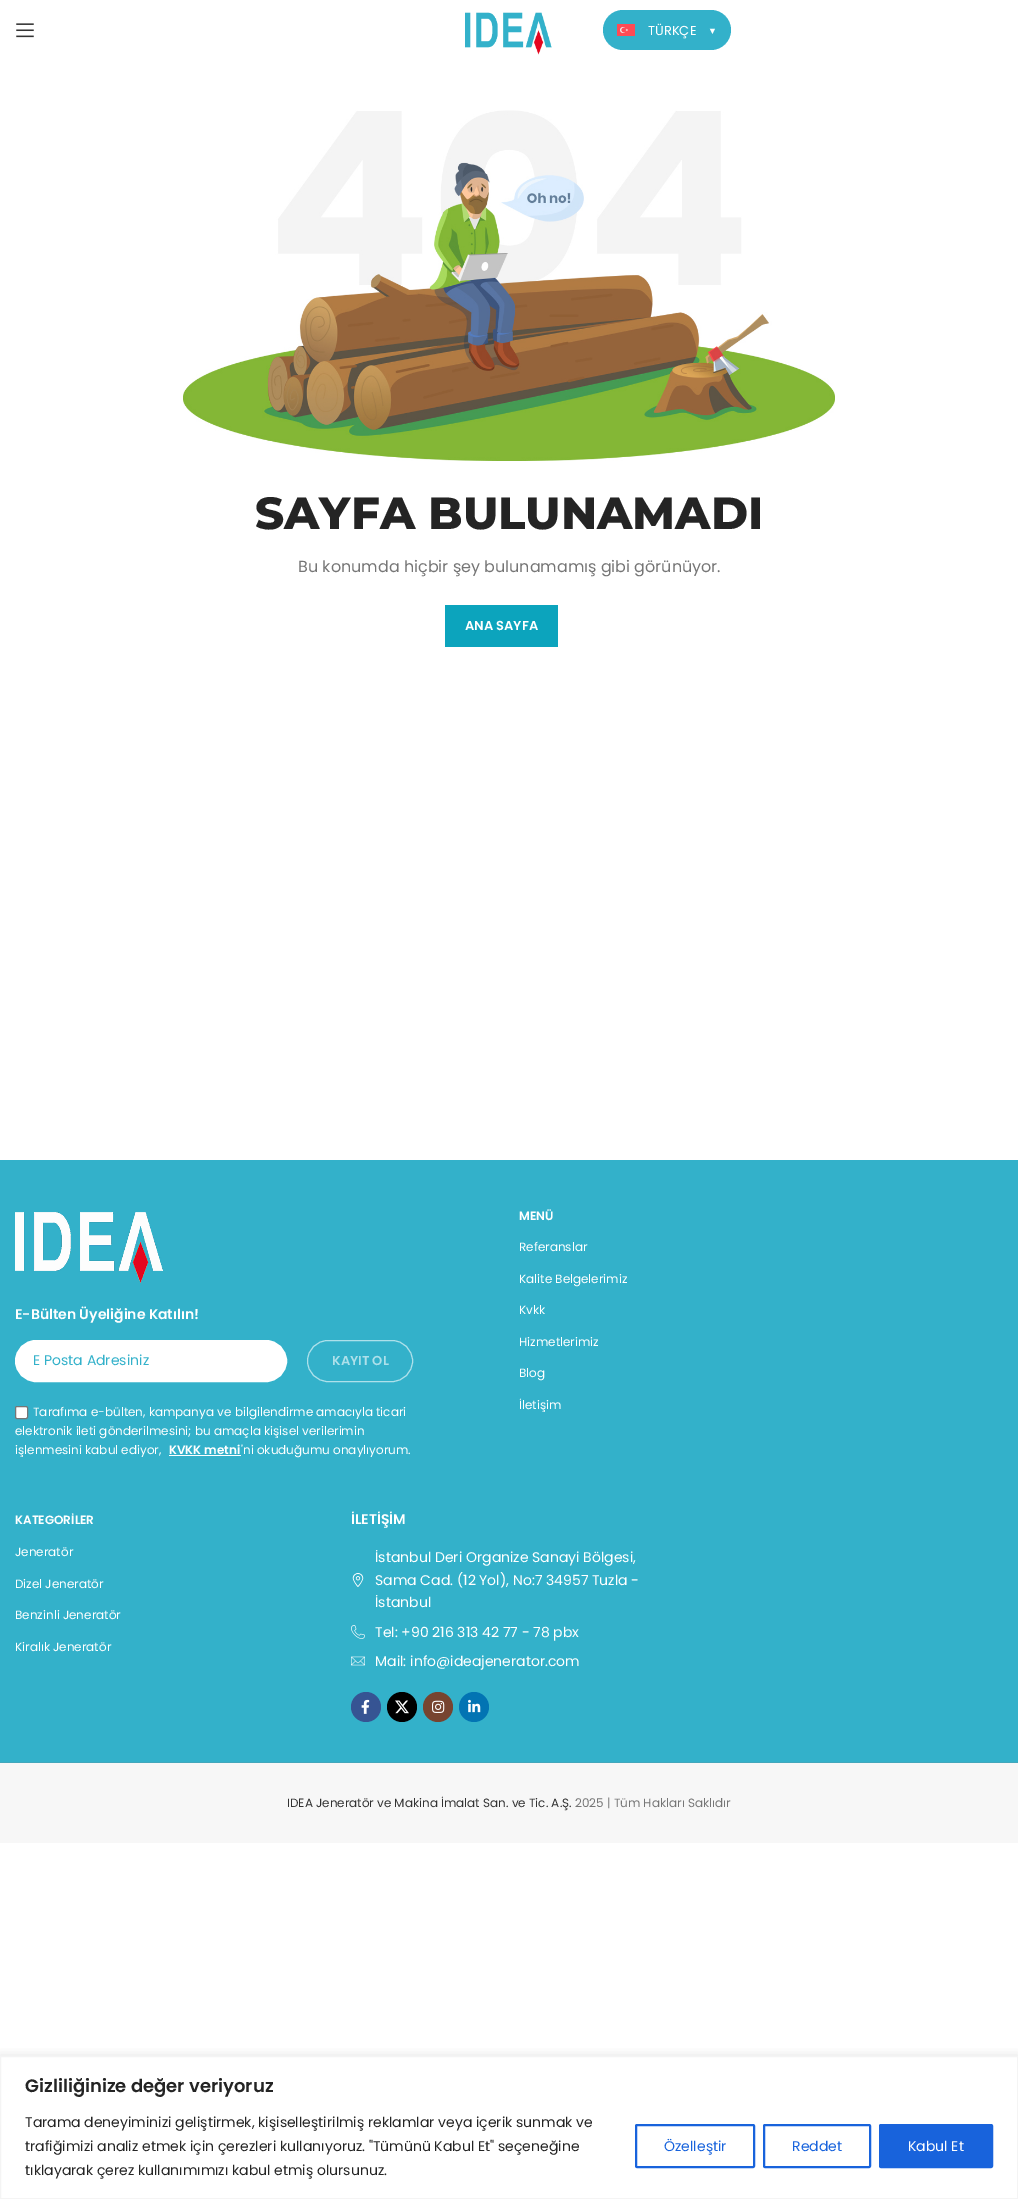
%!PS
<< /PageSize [1018 2199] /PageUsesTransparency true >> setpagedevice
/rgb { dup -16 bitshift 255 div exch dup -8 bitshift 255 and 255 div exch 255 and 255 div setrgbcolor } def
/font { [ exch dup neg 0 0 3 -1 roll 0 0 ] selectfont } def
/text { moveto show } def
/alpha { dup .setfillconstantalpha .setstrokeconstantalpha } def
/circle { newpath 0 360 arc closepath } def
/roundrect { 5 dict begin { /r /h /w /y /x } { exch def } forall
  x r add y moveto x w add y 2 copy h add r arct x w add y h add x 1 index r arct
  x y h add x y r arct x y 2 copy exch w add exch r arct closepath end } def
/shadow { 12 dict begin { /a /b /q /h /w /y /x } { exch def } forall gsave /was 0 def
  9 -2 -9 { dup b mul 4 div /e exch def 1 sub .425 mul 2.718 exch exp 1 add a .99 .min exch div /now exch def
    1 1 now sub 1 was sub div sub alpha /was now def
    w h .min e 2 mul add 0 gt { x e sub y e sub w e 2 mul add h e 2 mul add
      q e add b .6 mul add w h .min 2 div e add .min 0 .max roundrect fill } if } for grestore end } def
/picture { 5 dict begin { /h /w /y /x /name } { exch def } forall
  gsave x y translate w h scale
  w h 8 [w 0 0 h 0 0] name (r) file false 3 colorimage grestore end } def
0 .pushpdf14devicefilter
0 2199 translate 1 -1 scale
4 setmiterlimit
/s1 { /Poppins-Regular 13 font 16#FFFFFF rgb } def
/s2 { /LiberationSerif-Regular 9 font 16#FFFFFF rgb } def
/s3 { /Montserrat-ExtraBold 45 font 16#242424 rgb } def
/s4 { /Poppins-Regular 16 font 16#767676 rgb } def
/s5 { /Poppins-SemiBold 13 font 16#FFFFFF rgb } def
/s6 { /Poppins-SemiBold 14 font 16#FFFFFF rgb } def
/s7 { /Poppins-Regular 14 font 16#33B1CA rgb } def
/s8 { /Poppins-SemiBold 13 font 16#ADE0EA rgb } def
/s9 { /Poppins-Regular 12 font 16#FFFFFF rgb } def
/s10 { /Poppins-SemiBold 12 font 16#FFFFFF rgb } def
/s11 { /Poppins-Regular 14 font 16#FFFFFF rgb } def
/s12 { /Poppins-Regular 12 font 16#333333 rgb } def
/s13 { /Poppins-Regular 12 font 16#767676 rgb } def
/s14 { /Poppins-SemiBold 18 font 16#242424 rgb } def
/s15 { /Poppins-Regular 14 font 16#242424 rgb } def
/s16 { /Poppins-Regular 14 font 16#1863DC rgb } def
16#FFFFFF rgb
0 0 1018 2199 rectfill
(pic1.raw) 16 23 18 15 picture
(pic2.raw) 465 12 87 43 picture
16#33B1CA rgb
603 10 128 40 20 roundrect fill
(pic3.raw) 617 24 18 12 picture
s1
(TÜRKÇE) 648 35 text
s2
(▼) 708 34 text
(pic4.raw) 183 110 652 351 picture
s3
(SAYFA BULUNAMADI) 255 529 text
s4
(Bu konumda hiçbir şey bulunamamış gibi görünüyor.) 298 572 text
16#0CA4BD rgb
445 605 113 42 rectfill
s5
(ANA SAYFA) 465 630 text
16#33B1CA rgb
0 1160 1018 602 rectfill
16#43A7BB rgb
0 1762 1018 1 rectfill
(pic5.raw) 15 1212 148 71 picture
s6
(E-Bülten Üyeliğine Katılın!) 15 1319 text
16 1341 270 40 20 roundrect gsave fill grestore
2 setlinewidth
stroke
s7
(E Posta Adresiniz) 33 1365 text
16#ADE0EA rgb
1 setlinewidth
307.5 1340.5 105 41 20.5 roundrect stroke
s8
(KAYIT OL) 332 1365 text
16#FFFFFF rgb
15.5 1406.5 12 12 1.5 roundrect gsave fill grestore
16#767676 rgb
stroke
s9
(Tarafıma e-bülten, kampanya ve bilgilendirme amacıyla ticari) 33 1416 text
(elektronik ileti gönderilmesini; bu amaçla kişisel verilerimin) 15 1435 text
(işlenmesini kabul ediyor,) 15 1454 text
s10
(KVKK metni) 169 1454 text
s9
('ni okuduğumu onaylıyorum.) 241 1454 text
169 1455 72 1 rectfill
s10
(MENÜ) 519 1220 text
s9
(Referanslar) 519 1251 text
(Kalite Belgelerimiz) 519 1283 text
(Kvkk) 519 1314 text
(Hizmetlerimiz) 519 1346 text
(Blog) 519 1377 text
(İletişim) 519 1409 text
s10
(KATEGORİLER) 15 1524 text
s9
(Jeneratör) 15 1556 text
(Dizel Jeneratör) 15 1588 text
(Benzinli Jeneratör) 15 1619 text
(Kiralık Jeneratör) 15 1651 text
s6
(İLETİŞİM) 351 1524 text
(pic6.raw) 352 1573 12 14 picture
s11
(İstanbul Deri Organize Sanayi Bölgesi,) 375 1562 text
(Sama Cad. \(12 Yol\), No:7 34957 Tuzla -) 375 1585 text
(İstanbul) 375 1607 text
(pic7.raw) 351 1625 14 14 picture
(Tel: +90 216 313 42 77 - 78 pbx) 375 1637 text
(pic8.raw) 351 1656 14 10 picture
(Mail: info@ideajenerator.com) 375 1666 text
16#365493 rgb
366 1707 15 circle fill
(pic9.raw) 361 1699 9 15 picture
16#000000 rgb
402 1707 15 circle fill
(pic10.raw) 395 1700 14 14 picture
16#774430 rgb
438 1707 15 circle fill
(pic11.raw) 432 1700 13 13 picture
16#0274B3 rgb
474 1707 15 circle fill
(pic12.raw) 468 1699 13 14 picture
16#F7F7F7 rgb
0 1763 1018 80 rectfill
s12
(IDEA Jeneratör ve Makina İmalat San. ve Tic. A.Ş.) 287 1807 text
s13
(2025 | Tüm Hakları Saklıdır) 575 1807 text
gsave
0 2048 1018 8 rectclip
16#ACABAB rgb
0 2055 1018 143 0 5 0.3 shadow
grestore
16#F4F4F4 rgb
0.5 2056.5 1017 142 rectstroke
s14
(Gizliliğinize değer veriyoruz) 25 2092 text
s15
(Tarama deneyiminizi geliştirmek, kişiselleştirilmiş reklamlar veya içerik sunmak ve) 25 2127 text
(trafiğimizi analiz etmek için çerezleri kullanıyoruz. "Tümünü Kabul Et" seçeneğine) 25 2151 text
(tıklayarak çerez kullanımımızı kabul etmiş olursunuz.) 25 2175 text
16#1863DC rgb
2 setlinewidth
636 2125 118 42 1 roundrect stroke
(Özelleştir) 664 2151 text
764 2125 106 42 1 roundrect stroke
(Reddet) 792 2151 text
880 2125 112 42 1 roundrect gsave fill grestore
stroke
s11
(Kabul Et) 908 2151 text
.poppdf14devicefilter showpage
